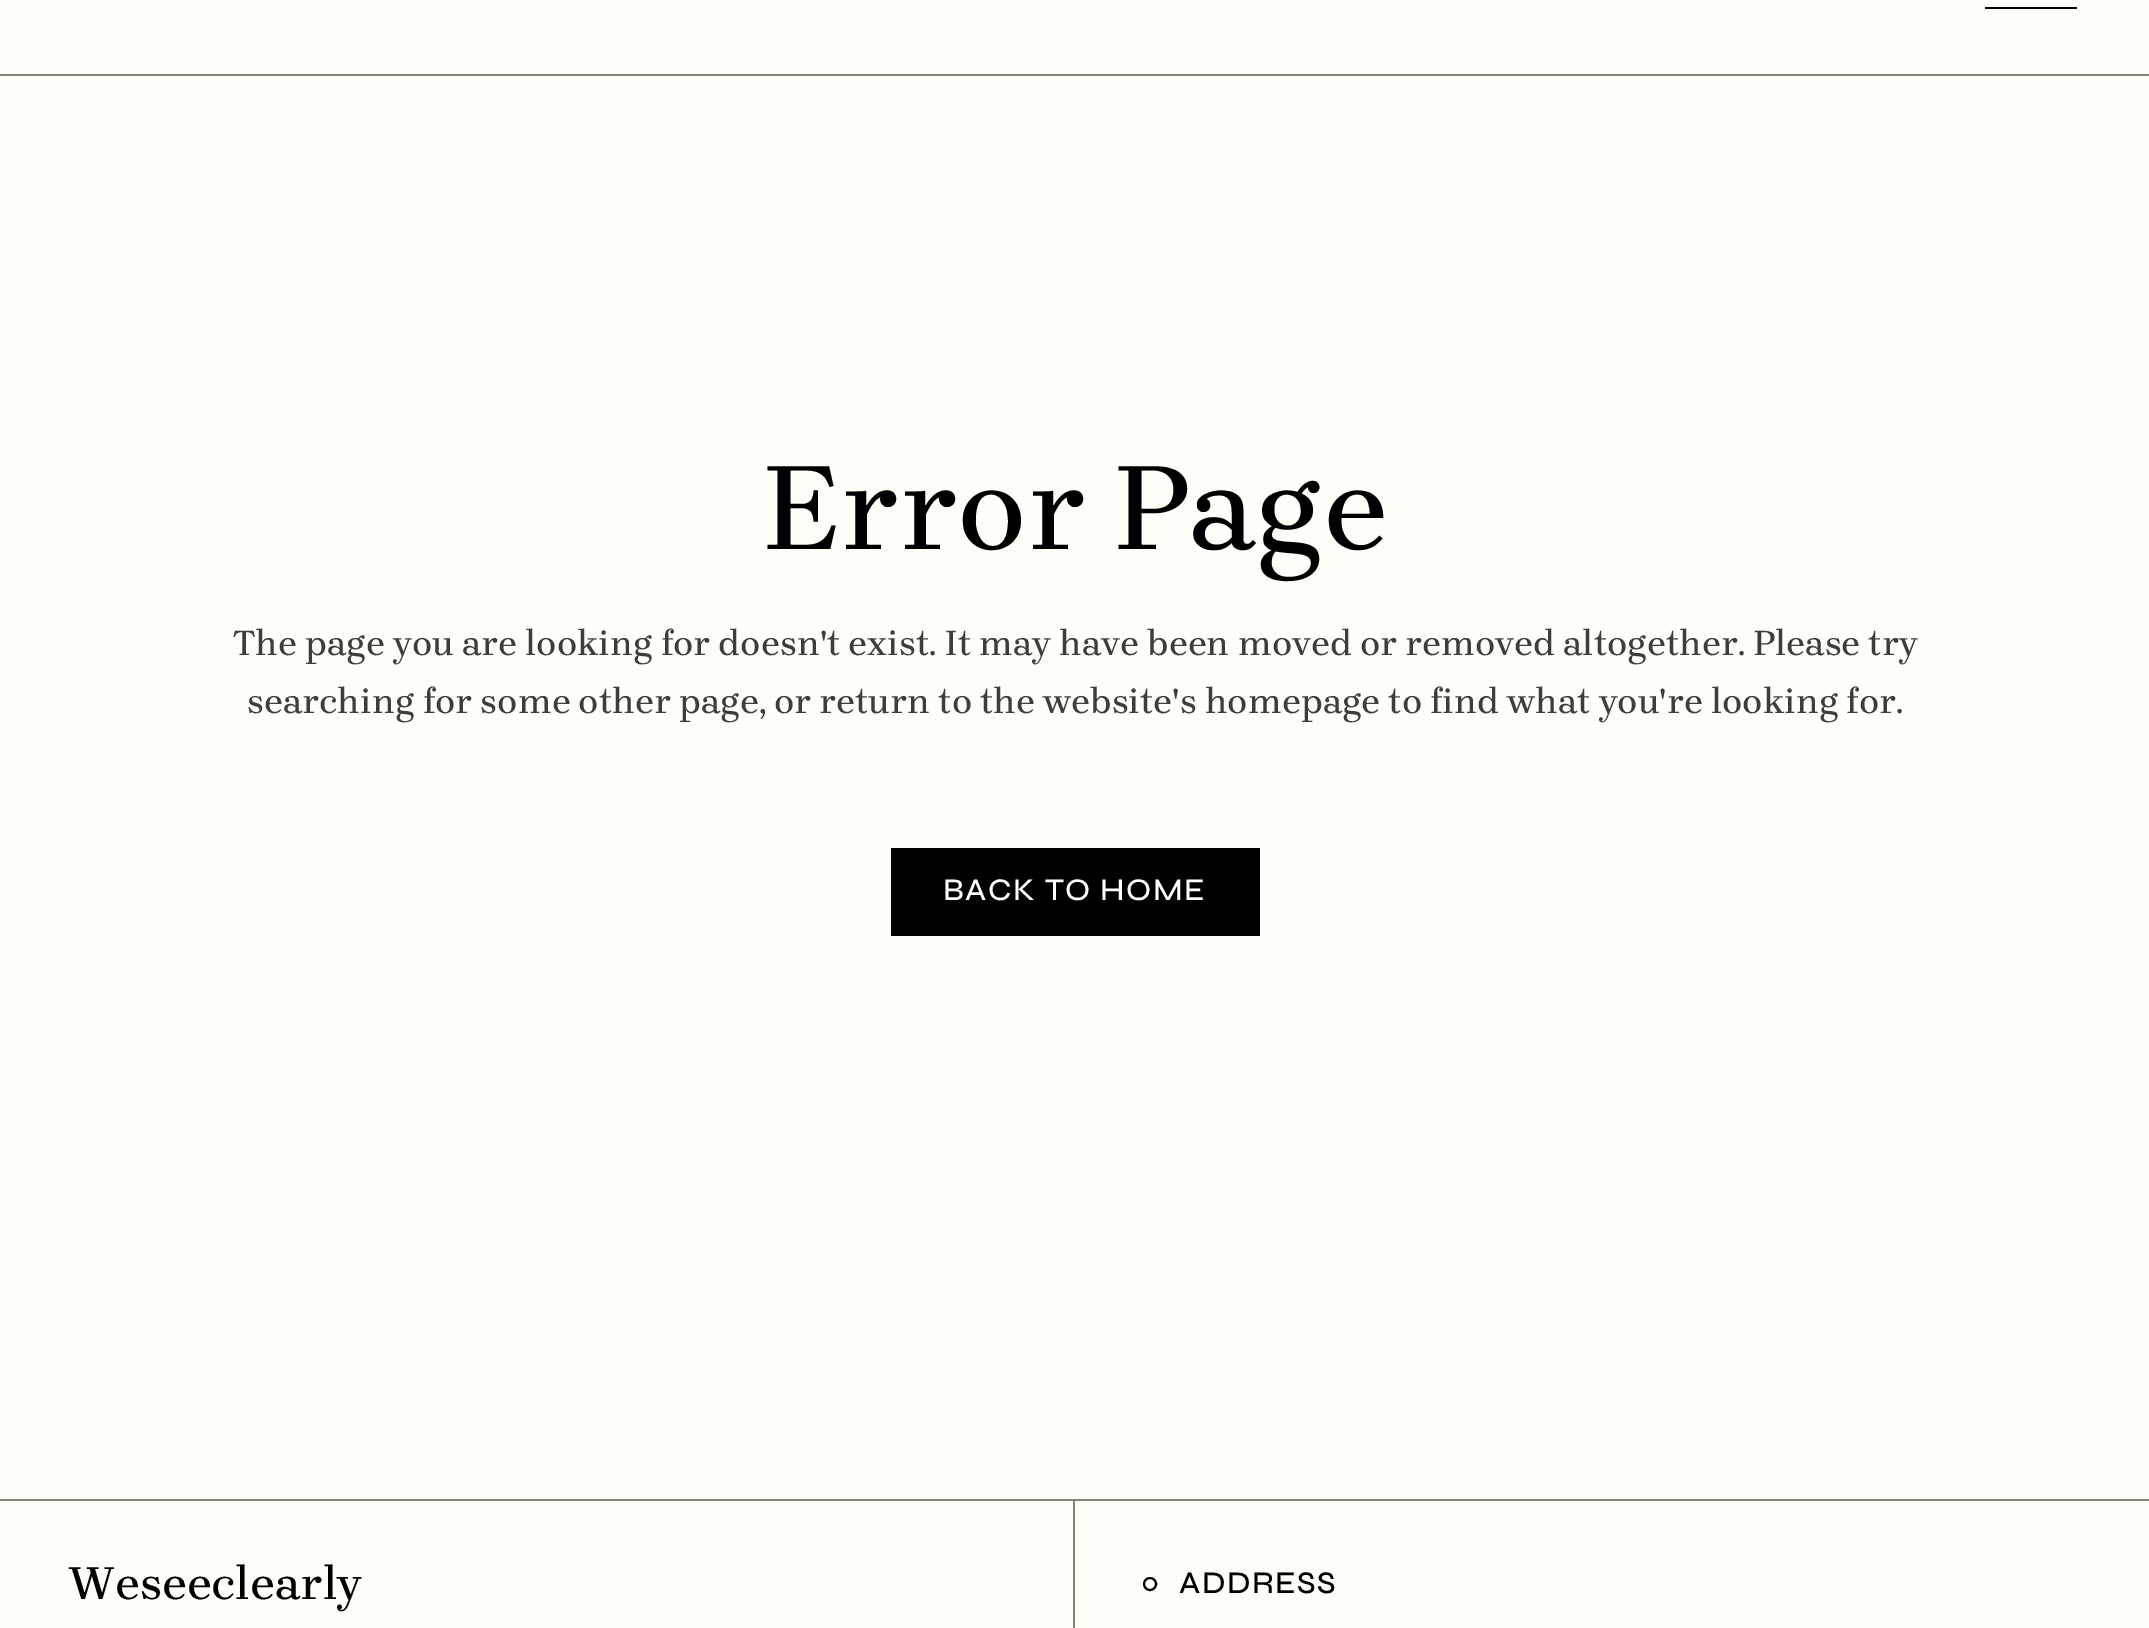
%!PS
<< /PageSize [2149 1628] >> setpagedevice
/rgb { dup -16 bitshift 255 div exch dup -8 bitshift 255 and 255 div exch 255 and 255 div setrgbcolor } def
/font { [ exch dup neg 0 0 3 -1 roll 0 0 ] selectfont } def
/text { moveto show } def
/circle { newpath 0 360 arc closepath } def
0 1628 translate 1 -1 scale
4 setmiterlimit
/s1 { /Brygada1918-Medium 123.75 font 16#000000 rgb } def
/s2 { /Brygada1918-Medium 36 font 16#3D3D3D rgb } def
/s3 { /Brygada1918-Medium 47.25 font 16#000000 rgb } def
16#FFFDF7 rgb
0 0 2149 1628 rectfill
16#7F8678 rgb
0 74 2149 2 rectfill
16#000000 rgb
1985 7 92 2 rectfill
s1
(Error Page) 762 549 text
s2
(The page you are looking for doesn't exist. It may have been moved or removed altogether. Please try) 233 655 text
(searching for some other page, or return to the website's homepage to find what you're looking for.) 247 713 text
16#000000 rgb
891 848 369 88 rectfill
/Syne-Medium 31.5 font
16#FFFFFF rgb
943 900 moveto 1.5 0 (BACK TO HOME) ashow
16#7F8678 rgb
0 1499 2149 2 rectfill
1073 1501 2 127 rectfill
s3
(Weseeclearly) 68 1599 text
2 setlinewidth
1150 1584 6 circle stroke
/Syne-Medium 31.5 font
1179 1593 moveto 1.5 0 (ADDRESS) ashow
showpage
